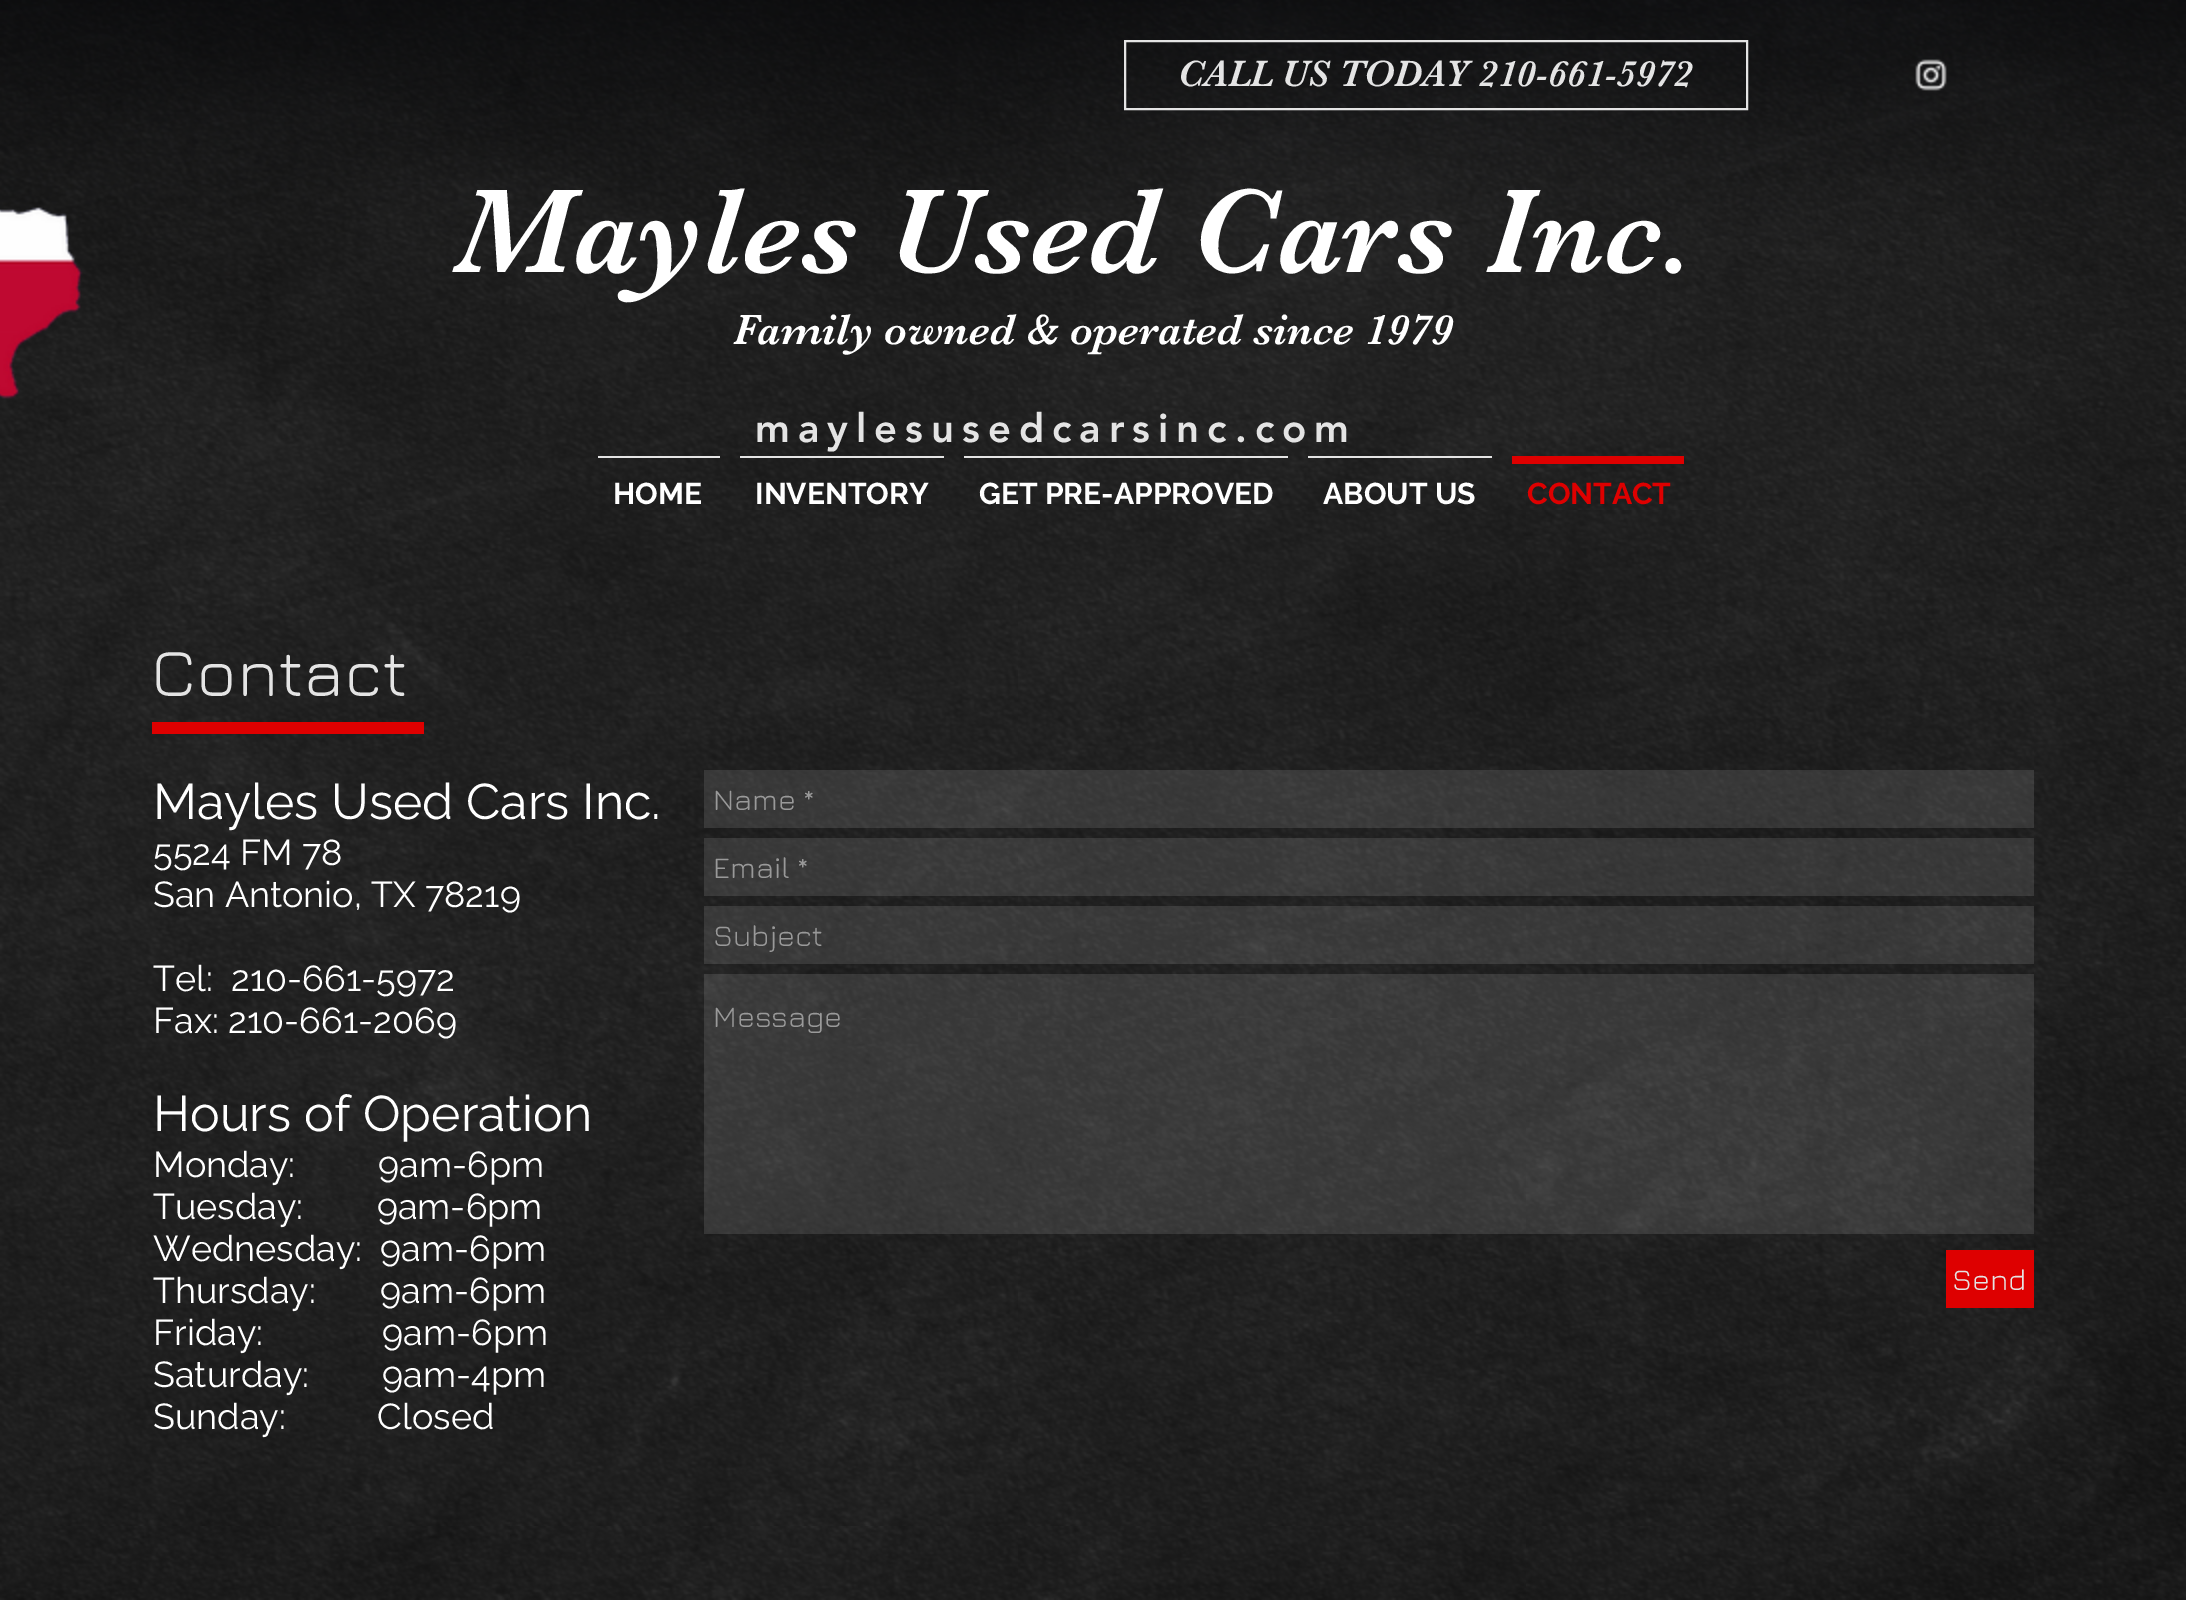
%!PS
<< /PageSize [2186 1600] /PageUsesTransparency true >> setpagedevice
/rgb { dup -16 bitshift 255 div exch dup -8 bitshift 255 and 255 div exch 255 and 255 div setrgbcolor } def
/font { [ exch dup neg 0 0 3 -1 roll 0 0 ] selectfont } def
/text { moveto show } def
/alpha { dup .setfillconstantalpha .setstrokeconstantalpha } def
/picture { 5 dict begin { /h /w /y /x /name } { exch def } forall
  gsave x y translate w h scale
  w h 8 [w 0 0 h 0 0] name (r) file false 3 colorimage grestore end } def
0 .pushpdf14devicefilter
0 1600 translate 1 -1 scale
4 setmiterlimit
/s1 { /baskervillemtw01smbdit-Regular 38 font 16#E4E4E4 rgb } def
/s2 { /baskervillemtw01smbdit-Regular 124 font 16#FFFFFF rgb } def
/s3 { /baskervillemtw01smbdit-Regular 44 font 16#FFFFFF rgb } def
/s4 { /Raleway-Bold 30 font 16#FFFFFF rgb } def
/s5 { /Raleway-Bold 30 font 16#DE0000 rgb } def
/s6 { /Jura-Regular 68 font 16#E4E4E4 rgb } def
/s7 { /Raleway-Regular 50 font 16#FFFFFF rgb } def
/s8 { /Raleway-Regular 36 font 16#FFFFFF rgb } def
/s9 { /Jura-Regular 30 font 16#999999 rgb } def
/s10 { /Jura-Regular 30 font 16#E4E4E4 rgb } def
16#000000 rgb
0 0 2186 1600 rectfill
(pic1.raw) 0 0 2186 1600 picture
16#E4E4E4 rgb
2 setlinewidth
1125 41 622 68 rectstroke
s1
(CALL US TODAY 210-661-5972) 1178 86 text
(pic2.raw) 1915 59 32 32 picture
(pic3.raw) 0 207 83 192 picture
s2
(Mayles Used Cars Inc.) 455 272 text
s3
(Family owned & operated since 1979) 733 344 text
/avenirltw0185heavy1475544-Black 40 font
16#E4E4E4 rgb
755 442 moveto 8 0 (maylesusedcarsinc.com) ashow
598 456 122 2 rectfill
s4
(HOME) 613 504 text
16#E4E4E4 rgb
740 456 204 2 rectfill
s4
(INVENTORY) 755 504 text
16#E4E4E4 rgb
964 456 324 2 rectfill
s4
(GET PRE-APPROVED) 979 504 text
16#E4E4E4 rgb
1308 456 184 2 rectfill
s4
(ABOUT US) 1323 504 text
16#DE0000 rgb
1512 456 172 8 rectfill
(CONTACT) 1527 504 text
s6
(Contact) 151 696 text
16#DE0000 rgb
152 722 272 12 rectfill
s7
(Mayles Used Cars Inc.) 153 819 text
s8
(5524 FM 78) 153 865 text
(San Antonio, TX 78219) 153 907 text
(Tel:  210-661-5972) 153 991 text
(Fax: 210-661-2069) 153 1033 text
s7
(Hours of Operation) 153 1131 text
s8
(Monday:         9am-6pm) 153 1177 text
(Tuesday:        9am-6pm) 153 1219 text
(Wednesday:  9am-6pm) 153 1261 text
(Thursday:       9am-6pm) 153 1303 text
(Friday:             9am-6pm) 153 1345 text
(Saturday:        9am-4pm) 153 1387 text
(Sunday:          Closed) 153 1429 text
0.13 alpha
16#E4E4E4 rgb
704 770 1330 58 rectfill
1 alpha
s9
(Name *) 713 810 text
0.13 alpha
16#E4E4E4 rgb
704 838 1330 58 rectfill
1 alpha
s9
(Email *) 713 878 text
0.13 alpha
16#E4E4E4 rgb
704 906 1330 58 rectfill
1 alpha
s9
(Subject) 713 946 text
0.13 alpha
16#E4E4E4 rgb
704 974 1330 260 rectfill
1 alpha
s9
(Message) 713 1027 text
16#DE0000 rgb
1946 1250 88 58 rectfill
s10
(Send) 1952 1290 text
.poppdf14devicefilter showpage
